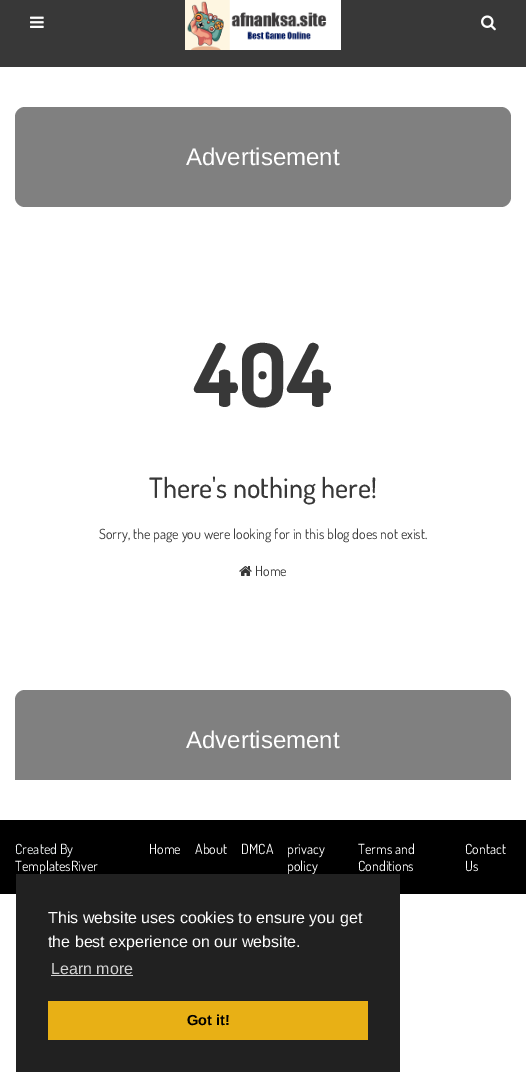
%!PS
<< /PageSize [526 1088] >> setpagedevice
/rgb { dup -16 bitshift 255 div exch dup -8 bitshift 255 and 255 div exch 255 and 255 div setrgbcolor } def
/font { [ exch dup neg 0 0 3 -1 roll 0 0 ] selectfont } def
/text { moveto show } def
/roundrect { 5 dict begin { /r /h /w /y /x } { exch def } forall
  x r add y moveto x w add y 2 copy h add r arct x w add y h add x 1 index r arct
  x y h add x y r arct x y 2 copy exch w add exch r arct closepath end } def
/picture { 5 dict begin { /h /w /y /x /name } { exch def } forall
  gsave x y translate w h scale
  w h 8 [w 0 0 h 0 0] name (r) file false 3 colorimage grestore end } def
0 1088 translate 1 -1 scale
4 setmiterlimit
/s1 { /LiberationSans-Regular 24 font 16#FFFFFF rgb } def
/s2 { /Dosis-Bold 88 font 16#383838 rgb } def
/s3 { /Dosis-Medium 28 font 16#383838 rgb } def
/s4 { /Dosis-Regular 14 font 16#383838 rgb } def
/s5 { /Dosis-Regular 14 font 16#F2F6F7 rgb } def
/s6 { /Dosis-Regular 14 font 16#FFFFFF rgb } def
/s7 { /LiberationSans-Regular 16 font 16#FFFFFF rgb } def
/s8 { /LiberationSans-Regular 16 font 16#D3D3D3 rgb } def
/s9 { /LiberationSans-Bold 14.5 font 16#000000 rgb } def
16#FFFFFF rgb
0 0 526 1088 rectfill
16#383838 rgb
0 0 526 67 rectfill
(pic1.raw) 185 0 156 50 picture
(pic2.raw) 30 16 14 12 picture
(pic3.raw) 481 15 15 16 picture
16#808080 rgb
15 107 496 100 10 roundrect fill
s1
(Advertisement) 186 165 text
s2
(404) 194 407 text
s3
(There's nothing here!) 149 498 text
s4
(Sorry, the page you were looking for in this blog does not exist.) 99 539 text
(pic4.raw) 239 566 13 10 picture
(Home) 255 576 text
16#808080 rgb
25 690 moveto 501 690 lineto 506.5 690 511 694.5 511 700 curveto 511 780 lineto 15 780 lineto 15 700 lineto 15 694.5 19.5 690 25 690 curveto closepath fill
s1
(Advertisement) 186 748 text
16#000000 rgb
0 820 526 74 rectfill
s5
(Created By) 15 854 text
s6
(TemplatesRiver) 15 871 text
(Home) 149 854 text
(About) 195 854 text
(DMCA) 241 854 text
(privacy) 287 854 text
(policy) 287 871 text
(Terms and) 358 854 text
(Conditions) 358 871 text
(Contact) 465 854 text
(Us) 465 871 text
16#212121 rgb
16 874 384 198 rectfill
s7
(This website uses cookies to ensure you get) 48 923 text
(the best experience on our website.) 48 947 text
s8
(Learn more) 51 974 text
51 975 82 1 rectfill
16#E8B015 rgb
48 1001 320 39 rectfill
s9
(Got it!) 187 1025 text
showpage
